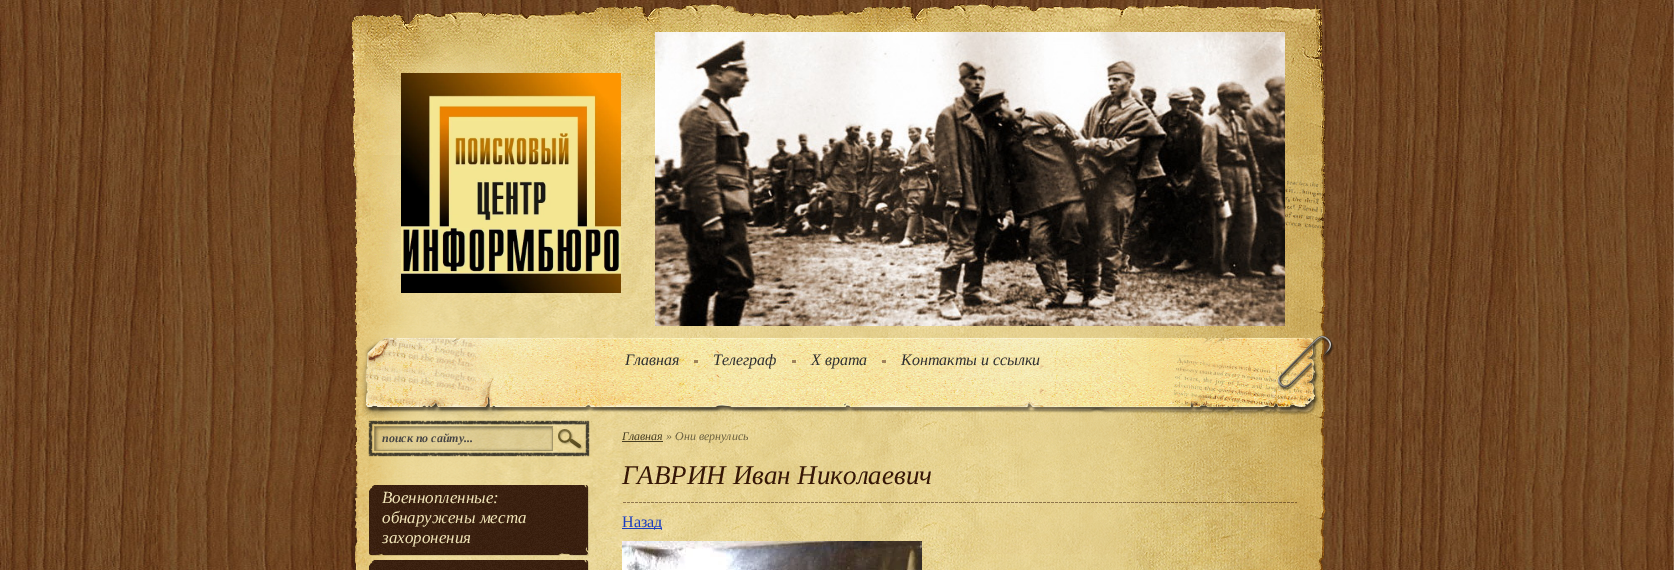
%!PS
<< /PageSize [1674 570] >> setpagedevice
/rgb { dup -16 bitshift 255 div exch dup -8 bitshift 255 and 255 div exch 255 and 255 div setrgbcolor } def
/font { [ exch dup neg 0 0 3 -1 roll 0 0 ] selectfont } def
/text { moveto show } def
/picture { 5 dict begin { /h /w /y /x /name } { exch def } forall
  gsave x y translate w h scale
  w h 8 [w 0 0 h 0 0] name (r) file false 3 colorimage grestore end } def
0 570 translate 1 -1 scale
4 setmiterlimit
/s1 { /LiberationSerif-Italic 16 font 16#303030 rgb } def
/s2 { /LiberationSerif-BoldItalic 12 font 16#464545 rgb } def
/s3 { /LiberationSerif-Italic 17 font 16#F1E5B8 rgb } def
/s4 { /LiberationSerif-Italic 12 font 16#473E21 rgb } def
/s5 { /LiberationSerif-Italic 12 font 16#6C6240 rgb } def
/s6 { /LiberationSerif-Italic 27 font 16#361706 rgb } def
/s7 { /LiberationSerif-Regular 16 font 16#1A3DC1 rgb } def
16#FFFFFF rgb
0 0 1674 570 rectfill
(pic1.raw) 0 0 1674 570 picture
(pic2.raw) 351 4 979 265 picture
(pic3.raw) 355 269 971 218 picture
(pic4.raw) 655 32 630 294 picture
(pic5.raw) 401 73 220 220 picture
(pic6.raw) 360 335 974 83 picture
s1
(Главная) 625 365 text
16#9F8259 rgb
694 360 4 3 rectfill
s1
(Телеграф) 713 365 text
16#9F8259 rgb
792 360 4 3 rectfill
s1
(Х врата) 811 365 text
16#9F8259 rgb
882 360 4 3 rectfill
s1
(Контакты и ссылки) 901 365 text
(pic7.raw) 368 420 222 37 picture
s2
(поиск по сайту...) 382 442 text
(pic13.raw) 351 487 977 83 picture
(pic8.raw) 369 485 220 62 picture
(pic9.raw) 369 547 220 9 picture
s3
(Военнопленные:) 382 503 text
(обнаружены места) 382 523 text
(захоронения) 382 543 text
(pic10.raw) 369 560 220 10 picture
s4
(Главная) 622 440 text
622 441 41 1 rectfill
s5
(» Они вернулись) 666 440 text
(pic11.raw) 623 502 674 1 picture
s6
(ГАВРИН Иван Николаевич) 622 484 text
16#1A3DC1 rgb
622 528 40 1 rectfill
s7
(Назад) 622 527 text
(pic12.raw) 622 541 300 29 picture
showpage
